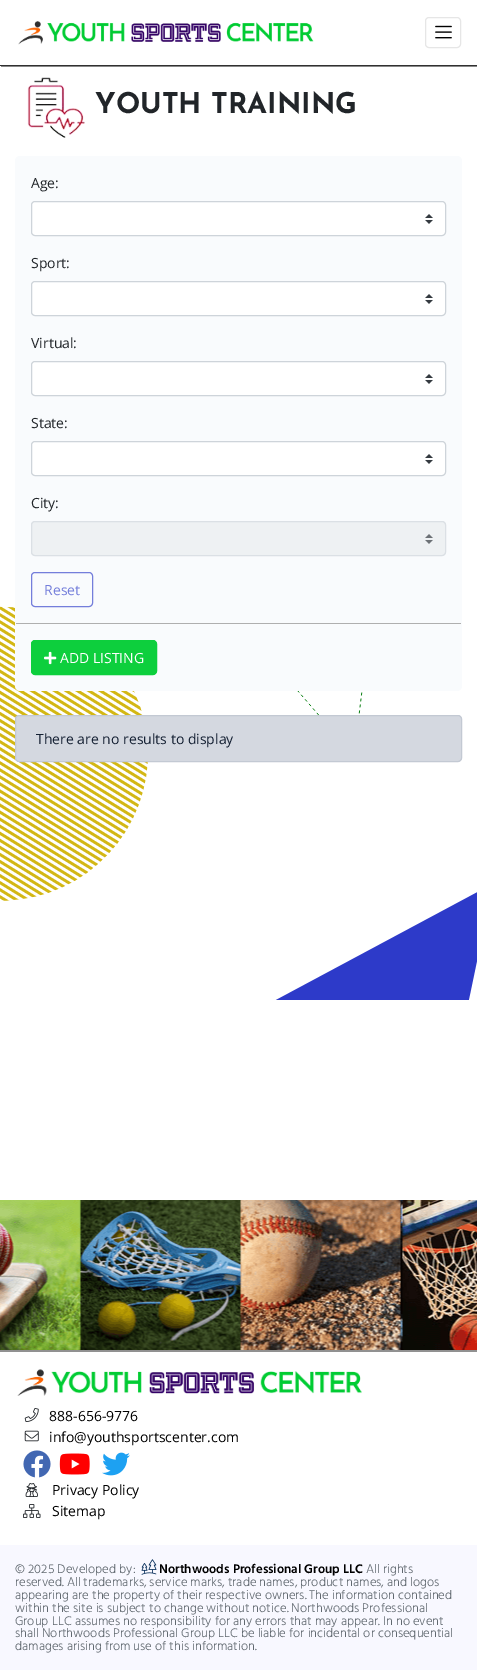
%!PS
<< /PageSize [477 1670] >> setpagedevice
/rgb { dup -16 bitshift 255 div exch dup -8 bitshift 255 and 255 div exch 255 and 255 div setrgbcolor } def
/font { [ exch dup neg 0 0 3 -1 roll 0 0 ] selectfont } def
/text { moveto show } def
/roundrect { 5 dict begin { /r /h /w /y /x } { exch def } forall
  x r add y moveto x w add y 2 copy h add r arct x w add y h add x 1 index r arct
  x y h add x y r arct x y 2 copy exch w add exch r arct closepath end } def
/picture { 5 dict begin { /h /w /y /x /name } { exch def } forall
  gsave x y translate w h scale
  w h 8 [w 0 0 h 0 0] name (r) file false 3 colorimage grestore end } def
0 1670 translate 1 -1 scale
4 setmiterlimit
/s1 { /JosefinSans-Bold 28.6 font 16#212529 rgb } def
/s2 { /OpenSans-Regular 14 font 16#212529 rgb } def
/s3 { /OpenSans-Regular 14 font 16#747EDB rgb } def
/s4 { /OpenSans-Regular 14 font 16#FFFFFF rgb } def
/s5 { /OpenSans-Regular 14 font 16#142033 rgb } def
/s6 { /OpenSans-Regular 14 font 16#000000 rgb } def
/s7 { /Hind-Light 12.8 font 16#60686F rgb } def
/s8 { /Hind-SemiBold 12.8 font 16#000000 rgb } def
16#FFFFFF rgb
0 0 477 1670 rectfill
(pic1.raw) 0 606 477 394 picture
16#888888 rgb
1 66 moveto 1 67 lineto 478 67 lineto 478 1 lineto 477 1 lineto 477 66 lineto closepath fill
16#303030 rgb
0 65 477 1 rectfill
(pic2.raw) 18 21 296 24 picture
16#E6E6E6 rgb
425.5 17.5 35 30 3.5 roundrect stroke
(pic3.raw) 435 25 17 14 picture
(pic4.raw) 27 77 58 61 picture
s1
(YOUTH TRAINING) 95 113 text
16#F9FBFD rgb
15 156 447 535 5 roundrect fill
s2
(Age:) 31 188 text
16#FFFFFF rgb
31 201 415 35 4 roundrect fill
(pic5.raw) 425 214 8 10 picture
16#CED4DA rgb
31.5 201.5 414 34 3.5 roundrect stroke
s2
(Sport:) 31 268 text
16#FFFFFF rgb
31 281 415 35 4 roundrect fill
(pic5.raw) 425 294 8 10 picture
16#CED4DA rgb
31.5 281.5 414 34 3.5 roundrect stroke
s2
(Virtual:) 31 348 text
16#FFFFFF rgb
31 361 415 35 4 roundrect fill
(pic5.raw) 425 374 8 10 picture
16#CED4DA rgb
31.5 361.5 414 34 3.5 roundrect stroke
s2
(State:) 31 428 text
16#FFFFFF rgb
31 441 415 35 4 roundrect fill
(pic5.raw) 425 454 8 10 picture
16#CED4DA rgb
31.5 441.5 414 34 3.5 roundrect stroke
s2
(City:) 31 508 text
16#EEF1F3 rgb
31 521 415 35 4 roundrect fill
(pic6.raw) 425 534 8 10 picture
16#DBE0E5 rgb
31.5 521.5 414 34 3.5 roundrect stroke
16#747EDB rgb
31.5 572.5 61 34 3.5 roundrect stroke
(Reset) 44 595 text
16#AFAFAF rgb
16 623 445 1 rectfill
16#0DCF3D rgb
31.5 640.5 125 34 3.5 roundrect gsave fill grestore
stroke
(pic7.raw) 44 651 13 14 picture
s4
(ADD LISTING) 60 663 text
16#D4D8E0 rgb
15.5 715.5 446 46 3.5 roundrect gsave fill grestore
16#C3C9D3 rgb
stroke
s5
(There are no results to display) 36 744 text
16#919191 rgb
0 1350 477 2 rectfill
(pic8.raw) 0 1200 477 150 picture
(pic9.raw) 17 1369 345 27 picture
(pic10.raw) 24 1408 15 14 picture
s6
(888-656-9776) 49 1421 text
(pic11.raw) 24 1430 15 12 picture
(info@youthsportscenter.com) 49 1442 text
(pic12.raw) 23 1450 28 28 picture
(pic13.raw) 59 1453 31 22 picture
(pic14.raw) 102 1452 28 24 picture
(pic15.raw) 25 1483 13 14 picture
(Privacy Policy) 52 1495 text
(pic16.raw) 23 1504 18 14 picture
(Sitemap) 52 1516 text
16#F8F8FF rgb
0 1545 477 125 rectfill
s7
(© 2025 Developed by:) 15 1573 text
(pic17.raw) 141 1559 16 16 picture
s8
(Northwoods Professional Group LLC) 159 1573 text
s7
(All rights) 366 1573 text
(reserved. All trademarks, service marks, trade names, product names, and logos) 15 1586 text
(appearing are the property of their respective owners. The information contained) 15 1599 text
(within the site is subject to change without notice. Northwoods Professional) 15 1612 text
(Group LLC assumes no responsibility for any errors that may appear. In no event) 15 1625 text
(shall Northwoods Professional Group LLC be liable for incidental or consequential) 15 1637 text
(damages arising from use of this information.) 15 1650 text
showpage
